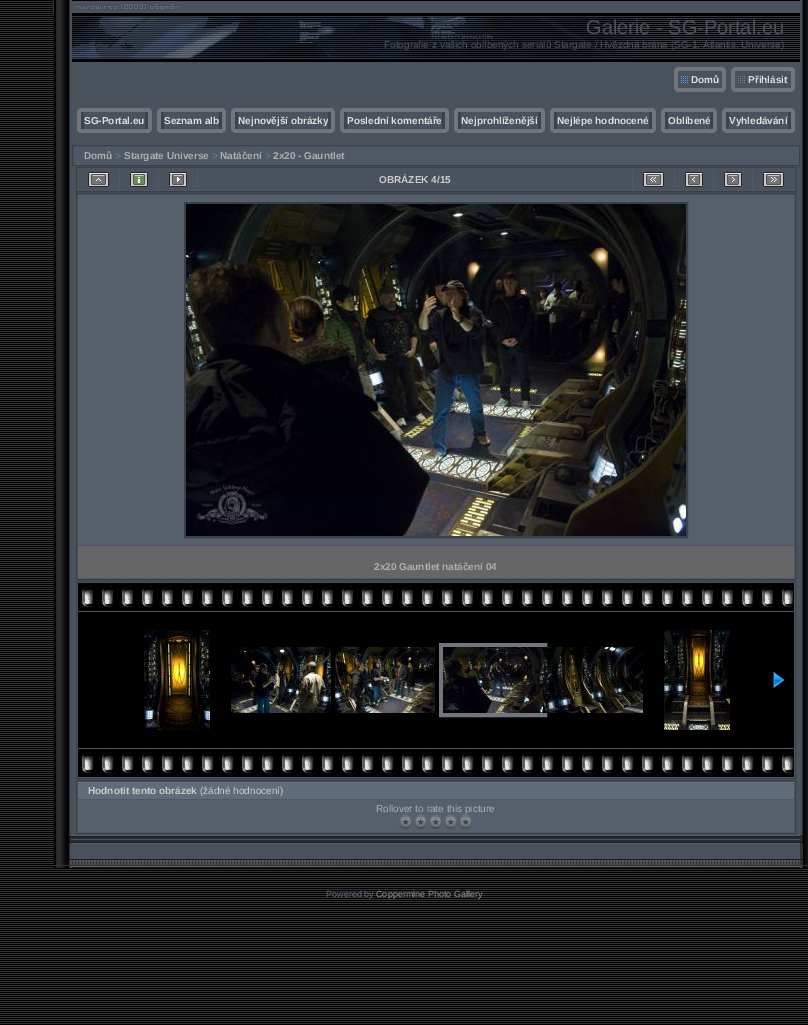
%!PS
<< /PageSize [808 1025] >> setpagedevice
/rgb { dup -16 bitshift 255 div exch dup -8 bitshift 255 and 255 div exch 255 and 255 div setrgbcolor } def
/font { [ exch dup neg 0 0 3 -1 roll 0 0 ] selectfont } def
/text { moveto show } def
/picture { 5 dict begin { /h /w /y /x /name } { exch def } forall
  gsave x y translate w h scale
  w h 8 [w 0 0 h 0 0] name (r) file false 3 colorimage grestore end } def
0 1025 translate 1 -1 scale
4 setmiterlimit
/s1 { /LiberationSans-Regular 20 font 16#4C5157 rgb } def
/s2 { /LiberationSans-Regular 10 font 16#4C5157 rgb } def
/s3 { /LiberationSans-Bold 10 font 16#DFDFDF rgb } def
/s4 { /LiberationSans-Bold 10 font 16#AEAEAE rgb } def
/s5 { /LiberationSans-Bold 10 font 16#6A7786 rgb } def
/s6 { /LiberationSans-Bold 10 font 16#CCCCCC rgb } def
/s7 { /LiberationSans-Regular 10 font 16#CCCCCC rgb } def
/s8 { /LiberationSans-Regular 10 font 16#AEAEAE rgb } def
/s9 { /LiberationSans-Regular 9 font 16#616C7A rgb } def
/s10 { /LiberationSans-Regular 9 font 16#949494 rgb } def
16#000000 rgb
0 0 808 1025 rectfill
(pic1.raw) 0 1 808 1023 picture
16#333333 rgb
53 0 1 13 rectfill
(pic2.raw) 54 0 18 62 picture
(pic3.raw) 72 1 728 61 picture
(pic4.raw) 72 3 561 55 picture
s1
(Galerie - SG-Portal.eu) 586 34 text
s2
(Fotografie z vašich oblíbených seriálů Stargate / Hvězdná brána \(SG-1, Atlantis, Universe\)) 384 48 text
(pic5.raw) 800 0 8 62 picture
(pic6.raw) 54 62 18 773 picture
16#49525D rgb
72 62 728 773 rectfill
(pic7.raw) 674 67 17 25 picture
(pic8.raw) 691 67 28 25 picture
s3
(Domů) 691 83 text
(pic9.raw) 719 67 7 25 picture
(pic10.raw) 731 67 17 25 picture
(pic11.raw) 748 67 40 25 picture
(Přihlásit) 748 83 text
(pic9.raw) 788 67 7 25 picture
(pic12.raw) 77 108 7 25 picture
(pic13.raw) 84 108 61 25 picture
(SG-Portal.eu) 84 124 text
(pic14.raw) 145 108 7 25 picture
(pic12.raw) 157 108 7 25 picture
(pic15.raw) 164 108 55 25 picture
(Seznam alb) 164 124 text
(pic14.raw) 219 108 7 25 picture
(pic12.raw) 231 108 7 25 picture
(pic16.raw) 238 108 90 25 picture
(Nejnovější obrázky) 238 124 text
(pic14.raw) 328 108 7 25 picture
(pic12.raw) 340 108 7 25 picture
(pic17.raw) 347 108 95 25 picture
(Poslední komentáře) 347 124 text
(pic14.raw) 442 108 7 25 picture
(pic12.raw) 454 108 7 25 picture
(pic18.raw) 461 108 77 25 picture
(Nejprohlíženější) 461 124 text
(pic14.raw) 538 108 7 25 picture
(pic12.raw) 550 108 7 25 picture
(pic19.raw) 557 108 92 25 picture
(Nejlépe hodnocené) 557 124 text
(pic14.raw) 649 108 7 25 picture
(pic12.raw) 661 108 7 25 picture
(pic20.raw) 668 108 42 25 picture
(Oblíbené) 668 124 text
(pic14.raw) 710 108 7 25 picture
(pic12.raw) 722 108 7 25 picture
(pic21.raw) 729 108 59 25 picture
(Vyhledávání) 729 124 text
(pic14.raw) 788 108 7 25 picture
16#4F5864 rgb
72.5 145.5 moveto 799.5 145.5 lineto 799.5 165.5 lineto 72.5 165.5 lineto closepath gsave fill grestore
16#394049 rgb
stroke
s4
(Domů) 84 159 text
s5
(>) 115 159 text
s4
(Stargate Universe) 124 159 text
s5
(>) 212 159 text
s4
(Natáčení) 220 159 text
s5
(>) 265 159 text
s4
(2x20 - Gauntlet) 273 159 text
16#4F5864 rgb
76.5 167.5 moveto 795.5 167.5 lineto 795.5 191.5 lineto 76.5 191.5 lineto closepath gsave fill grestore
16#394049 rgb
stroke
16#49525D rgb
78 169 41 21 rectfill
(pic22.raw) 88 172 21 15 picture
120 169 38 21 rectfill
(pic23.raw) 130 172 18 15 picture
159 169 38 21 rectfill
(pic24.raw) 169 172 18 15 picture
198 169 434 21 rectfill
s6
(OBRÁZEK 4/15) 379 183 text
16#49525D rgb
633 169 41 21 rectfill
(pic25.raw) 643 172 21 15 picture
675 169 38 21 rectfill
(pic26.raw) 685 172 18 15 picture
714 169 38 21 rectfill
(pic27.raw) 724 172 18 15 picture
753 169 41 21 rectfill
(pic28.raw) 763 172 21 15 picture
16#4F5864 rgb
76.5 193.5 moveto 795.5 193.5 lineto 795.5 579.5 lineto 76.5 579.5 lineto closepath gsave fill grestore
16#394049 rgb
stroke
16#56606D rgb
78 195 716 350 rectfill
16#394048 rgb
2 setlinewidth
185 203 502 334 rectstroke
(pic29.raw) 186 204 500 332 picture
16#666666 rgb
78 546 716 32 rectfill
s4
(2x20 Gauntlet natáčení 04) 374 570 text
16#4F5864 rgb
76.5 581.5 moveto 795.5 581.5 lineto 795.5 778.5 lineto 76.5 778.5 lineto closepath gsave fill grestore
16#394049 rgb
1 setlinewidth
stroke
16#000000 rgb
78 583 716 28 rectfill
(pic30.raw) 81 583 713 24 picture
78 612 716 136 rectfill
(pic31.raw) 144 630 66 100 picture
(pic32.raw) 231 647 100 66 picture
(pic33.raw) 335 647 100 66 picture
16#72767C rgb
4 setlinewidth
441 645 104 70 rectstroke
(pic34.raw) 443 647 100 66 picture
(pic35.raw) 543 647 100 66 picture
(pic36.raw) 664 630 66 100 picture
(pic37.raw) 773 672 12 16 picture
16#000000 rgb
78 749 716 28 rectfill
(pic30.raw) 81 749 713 24 picture
16#4F5864 rgb
76.5 780.5 moveto 795.5 780.5 lineto 795.5 833.5 lineto 76.5 833.5 lineto closepath gsave fill grestore
16#394049 rgb
1 setlinewidth
stroke
16#616C7A rgb
78 782 716 17 rectfill
s6
(Hodnotit tento obrázek) 88 794 text
s7
(\(žádné hodnocení\)) 200 794 text
16#56606D rgb
78 800 716 32 rectfill
s8
(Rollover to rate this picture) 376 812 text
(pic38.raw) 398 814 15 15 picture
(pic38.raw) 413 814 15 15 picture
(pic38.raw) 428 814 15 15 picture
(pic38.raw) 443 814 15 15 picture
(pic38.raw) 458 814 15 15 picture
(pic39.raw) 800 62 8 773 picture
(pic40.raw) 54 866 18 2 picture
(pic41.raw) 54 835 18 31 picture
(pic42.raw) 72 835 728 33 picture
(pic43.raw) 800 866 8 2 picture
(pic44.raw) 800 835 8 31 picture
s9
(Powered by) 326 897 text
s10
(Coppermine Photo Gallery) 376 897 text
showpage
